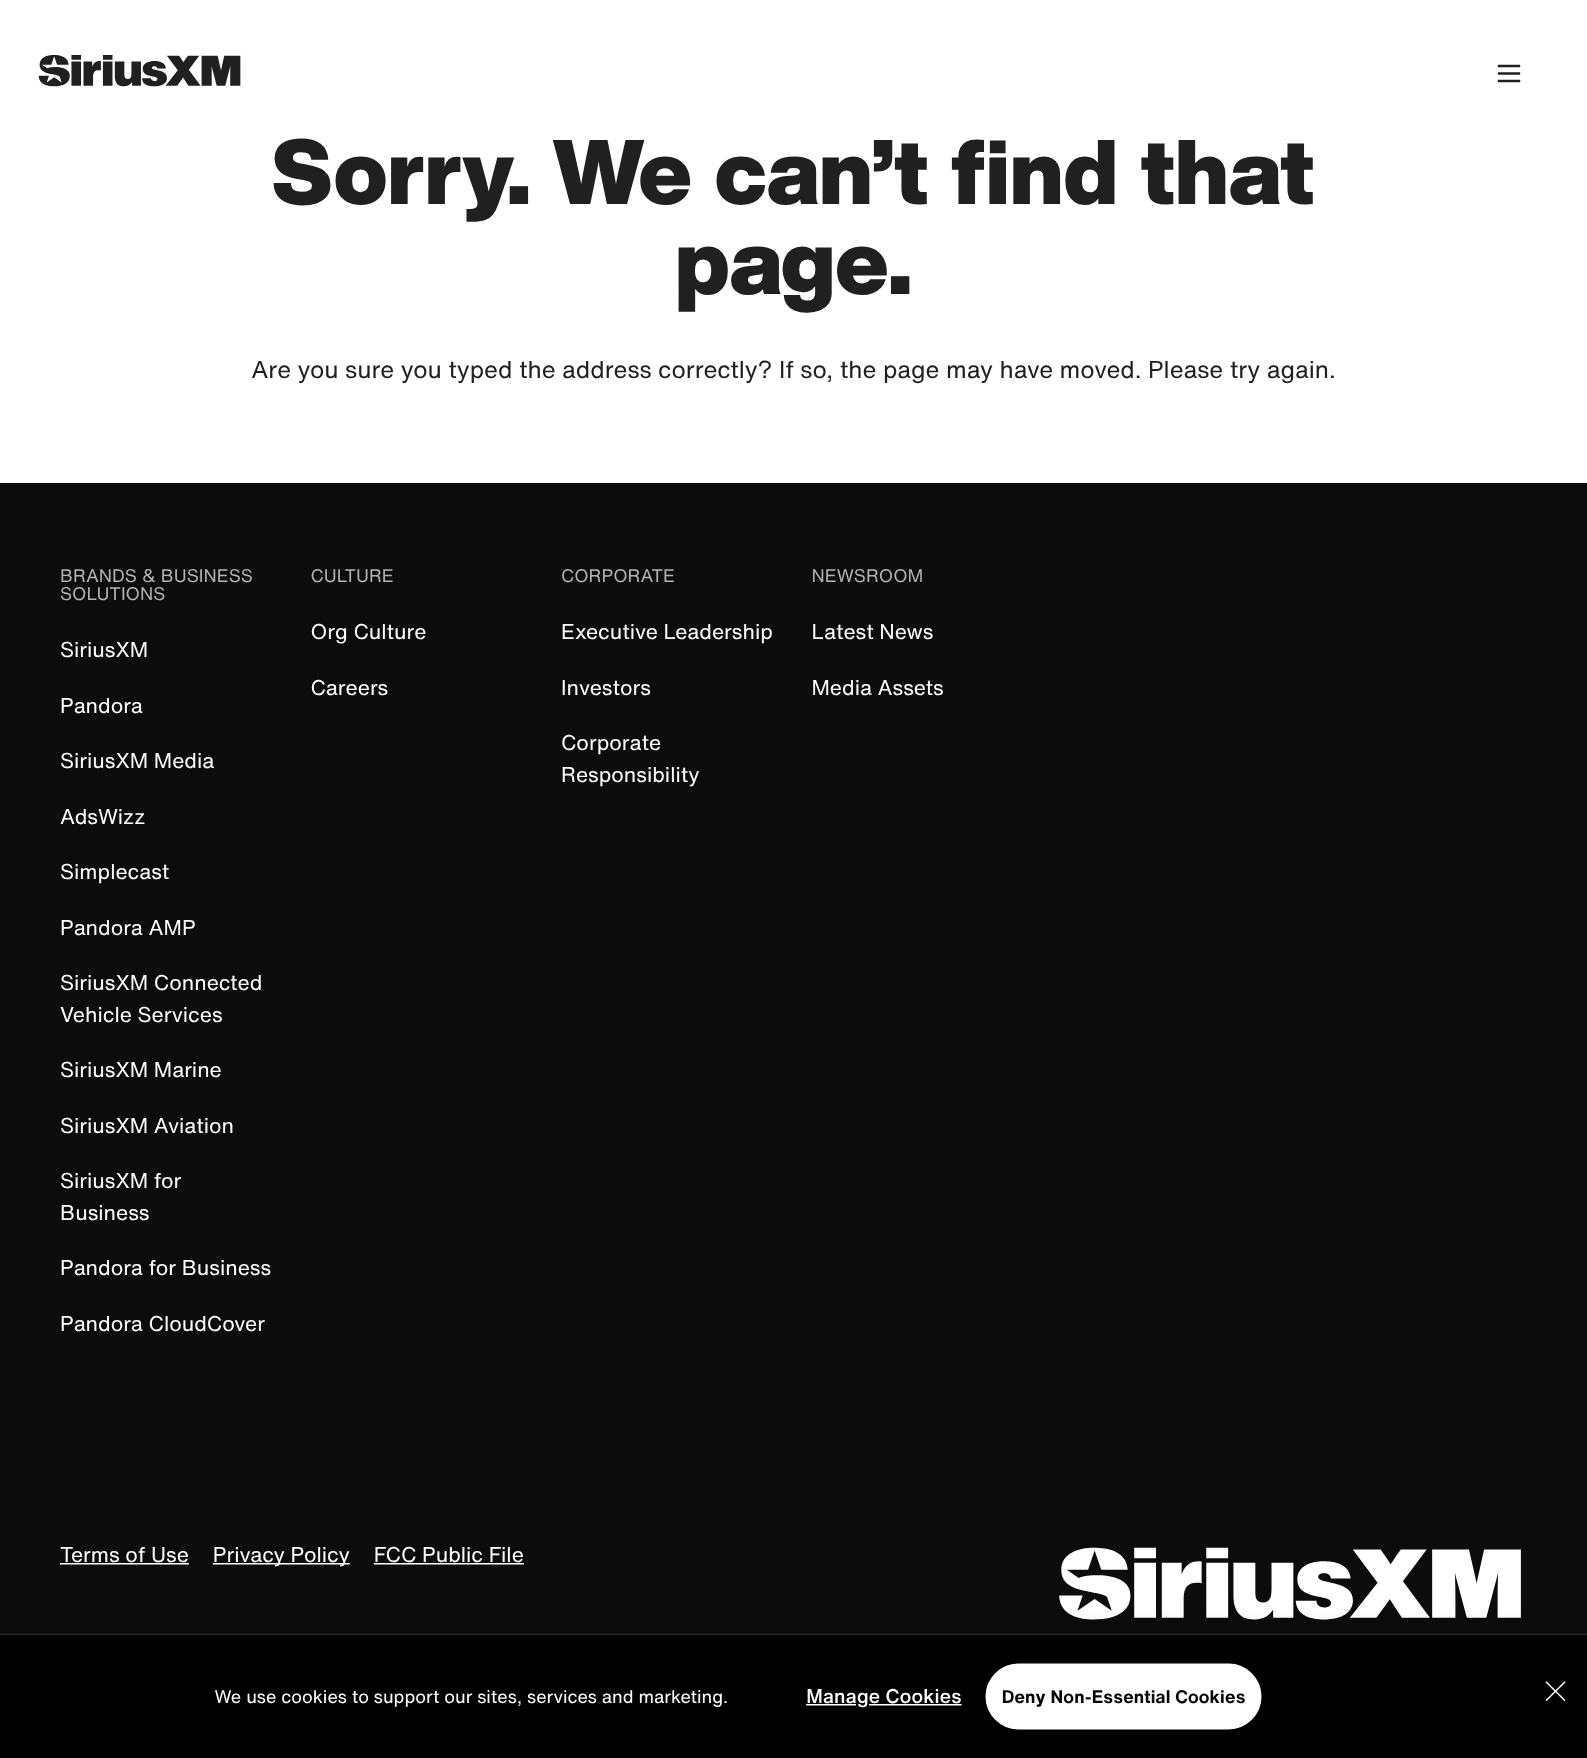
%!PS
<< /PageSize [1587 1758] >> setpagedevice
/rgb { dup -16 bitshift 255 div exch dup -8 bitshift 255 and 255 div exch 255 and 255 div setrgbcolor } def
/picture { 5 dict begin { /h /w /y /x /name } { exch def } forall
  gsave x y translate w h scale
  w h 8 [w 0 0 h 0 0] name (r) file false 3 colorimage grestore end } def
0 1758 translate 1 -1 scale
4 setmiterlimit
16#FFFFFF rgb
0 0 1587 1758 rectfill
(pic1.raw) 0 55 1587 1703 picture
showpage
